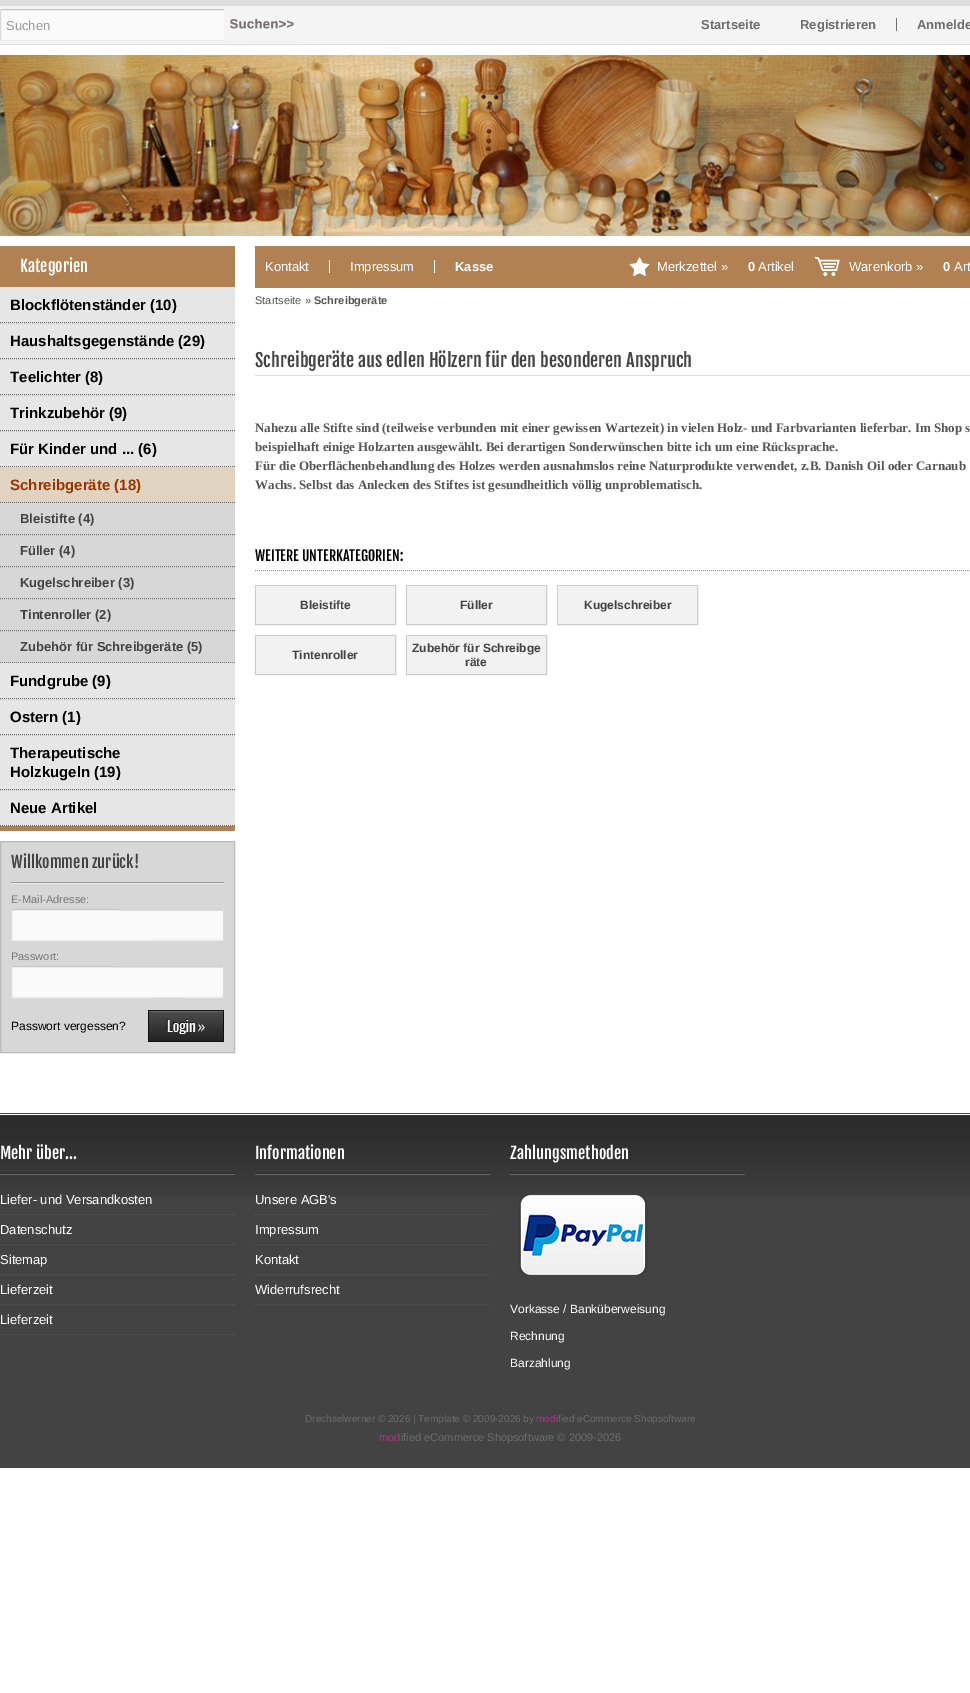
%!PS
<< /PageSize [970 1693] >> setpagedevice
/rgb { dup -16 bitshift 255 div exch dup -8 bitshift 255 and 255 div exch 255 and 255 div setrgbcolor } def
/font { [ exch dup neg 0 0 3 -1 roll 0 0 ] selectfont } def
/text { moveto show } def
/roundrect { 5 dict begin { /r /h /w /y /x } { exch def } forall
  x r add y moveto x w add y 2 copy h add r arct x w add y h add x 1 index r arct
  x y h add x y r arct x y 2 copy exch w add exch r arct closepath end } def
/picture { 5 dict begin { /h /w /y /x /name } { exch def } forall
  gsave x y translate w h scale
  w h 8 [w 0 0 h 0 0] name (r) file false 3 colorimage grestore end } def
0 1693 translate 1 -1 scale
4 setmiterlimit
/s1 { /Arimo-Regular 13 font 16#999999 rgb } def
/s2 { /Arimo-Bold 13 font 16#6D6D6D rgb } def
/s3 { /FjallaOne-Regular 16 font 16#FEFEFE rgb } def
/s4 { /Arimo-Bold 15 font 16#000000 rgb } def
/s5 { /Arimo-Bold 15 font 16#993300 rgb } def
/s6 { /Arimo-Bold 13 font 16#434343 rgb } def
/s7 { /FjallaOne-Regular 16 font 16#434343 rgb } def
/s8 { /Arimo-Regular 11 font 16#767676 rgb } def
/s9 { /Arimo-Regular 12 font 16#000000 rgb } def
/s10 { /Arimo-Regular 13 font 16#FEFEFE rgb } def
/s11 { /Arimo-Bold 13 font 16#FEFEFE rgb } def
/s12 { /Arimo-Regular 11 font 16#555555 rgb } def
/s13 { /Arimo-Bold 11 font 16#555555 rgb } def
/s14 { /FjallaOne-Regular 18 font 16#434343 rgb } def
/s15 { /LiberationSerif-Bold 13 font 16#555555 rgb } def
/s16 { /FjallaOne-Regular 14 font 16#000000 rgb } def
/s17 { /Arimo-Bold 12 font 16#434343 rgb } def
/s18 { /Arimo-Regular 12 font 16#FEFEFE rgb } def
/s19 { /Arimo-Regular 10 font 16#6D6D6D rgb } def
/s20 { /Arimo-Regular 10 font 16#B0347E rgb } def
/s21 { /Arimo-Regular 11 font 16#B0347E rgb } def
/s22 { /Arimo-Regular 11 font 16#6D6D6D rgb } def
16#FFFFFF rgb
0 0 970 1693 rectfill
16#F4F4F4 rgb
0 6 970 38 rectfill
16#DEDEDE rgb
0 0 970 6 rectfill
0 44 970 1 rectfill
16#FAFAFA rgb
0 9 300 32 2 roundrect fill
16#C6C6C6 rgb
1 10 moveto 2 9.5 lineto 298 9.5 lineto 299 10 lineto stroke
16#EAEAEA rgb
299 40 moveto 298 40.5 lineto 2 40.5 lineto 1 40 lineto stroke
16#DADADA rgb
1 40 moveto 0.5 39 lineto 0.5 11 lineto 1 10 lineto stroke
s1
(Suchen) 6 30 text
(pic1.raw) 224 9 76 32 picture
s2
(Startseite) 701 29 text
(Registrieren) 800 29 text
16#707070 rgb
896 18 1 13 rectfill
s2
(Anmelde) 917 29 text
(pic2.raw) 0 55 970 181 picture
16#B28152 rgb
0 246 235 585 rectfill
s3
(Kategorien) 20 272 text
16#E6E6E6 rgb
0 287 235 180 rectfill
16#656565 rgb
[1 1] 0 setdash
0 322.5 moveto 235 322.5 lineto stroke
s4
(Blockflötenständer \(10\)) 10 310 text
16#656565 rgb
0 358.5 moveto 235 358.5 lineto stroke
s4
(Haushaltsgegenstände \(29\)) 10 346 text
16#656565 rgb
0 394.5 moveto 235 394.5 lineto stroke
s4
(Teelichter \(8\)) 10 382 text
16#656565 rgb
0 430.5 moveto 235 430.5 lineto stroke
s4
(Trinkzubehör \(9\)) 10 418 text
16#656565 rgb
0 466.5 moveto 235 466.5 lineto stroke
s4
(Für Kinder und ... \(6\)) 10 454 text
16#E0D3C0 rgb
0 467 235 36 rectfill
16#656565 rgb
0 502.5 moveto 235 502.5 lineto stroke
s5
(Schreibgeräte \(18\)) 10 490 text
16#D7D7D7 rgb
0 503 235 160 rectfill
16#767676 rgb
0 534.5 moveto 235 534.5 lineto stroke
s6
(Bleistifte \(4\)) 20 523 text
16#767676 rgb
0 566.5 moveto 235 566.5 lineto stroke
s6
(Füller \(4\)) 20 555 text
16#767676 rgb
0 598.5 moveto 235 598.5 lineto stroke
s6
(Kugelschreiber \(3\)) 20 587 text
16#767676 rgb
0 630.5 moveto 235 630.5 lineto stroke
s6
(Tintenroller \(2\)) 20 619 text
16#767676 rgb
0 662.5 moveto 235 662.5 lineto stroke
s6
(Zubehör für Schreibgeräte \(5\)) 20 651 text
16#E6E6E6 rgb
0 663 235 163 rectfill
16#656565 rgb
0 698.5 moveto 235 698.5 lineto stroke
s4
(Fundgrube \(9\)) 10 686 text
16#656565 rgb
0 734.5 moveto 235 734.5 lineto stroke
s4
(Ostern \(1\)) 10 722 text
16#656565 rgb
0 789.5 moveto 235 789.5 lineto stroke
s4
(Therapeutische) 10 758 text
(Holzkugeln \(19\)) 10 777 text
16#656565 rgb
0 825.5 moveto 235 825.5 lineto stroke
s4
(Neue Artikel) 10 813 text
16#D7D7D7 rgb
0.5 841.5 moveto 234.5 841.5 lineto 234.5 1052.5 lineto 0.5 1052.5 lineto closepath gsave fill grestore
16#BBBBBB rgb
[] 0 setdash
stroke
s7
(Willkommen zurück!) 11 868 text
16#EEEEEE rgb
11 883 213 1 rectfill
16#989898 rgb
11 882 213 1 rectfill
s8
(E-Mail-Adresse:) 11 903 text
16#FAFAFA rgb
11 909 213 32 2 roundrect fill
16#C6C6C6 rgb
12 910 moveto 13 909.5 lineto 223 910 lineto stroke
16#DADADA rgb
223 910 moveto 223.5 911 lineto 223.5 939 lineto 223 940 lineto stroke
16#EAEAEA rgb
223 940 moveto 152.5 940.5 lineto 13 940.5 lineto 12 940 lineto stroke
16#DADADA rgb
12 940 moveto 11.5 939 lineto 11.5 911 lineto 12 910 lineto stroke
s8
(Passwort:) 11 960 text
16#FAFAFA rgb
11 966 213 32 2 roundrect fill
16#C6C6C6 rgb
12 967 moveto 13 966.5 lineto 223 967 lineto stroke
16#DADADA rgb
223 967 moveto 223.5 968 lineto 223.5 996 lineto 223 997 lineto stroke
16#EAEAEA rgb
223 997 moveto 152.5 997.5 lineto 13 997.5 lineto 12 997 lineto stroke
16#DADADA rgb
12 997 moveto 11.5 996 lineto 11.5 968 lineto 12 967 lineto stroke
s9
(Passwort vergessen?) 11 1030 text
(pic3.raw) 148 1010 76 32 picture
16#B28152 rgb
255 246 715 42 rectfill
16#FFFFFF rgb
329 260 1 13 rectfill
s10
(Kontakt) 265 271 text
16#FFFFFF rgb
434 260 1 13 rectfill
s10
(Impressum) 350 271 text
s11
(Kasse) 455 271 text
(pic4.raw) 629 257 21 19 picture
s10
(Merkzettel ») 657 271 text
s11
(0) 748 271 text
s10
(Artikel) 758 271 text
(pic5.raw) 815 256 25 20 picture
(Warenkorb ») 849 271 text
s11
(0) 943 271 text
s10
(Art) 954 271 text
s12
(Startseite ») 255 304 text
s13
(Schreibgeräte) 314 304 text
16#DDDDDD rgb
255 375 715 1 rectfill
s14
(Schreibgeräte aus edlen Hölzern für den besonderen Anspruch) 255 367 text
s15
(Nahezu alle Stifte sind \(teilweise verbunden mit einer gewissen Wartezeit\) in vielen Holz- und Farbvarianten lieferbar. Im Shop s) 255 432 text
(beispielhaft einige Holzarten ausgewählt. Bei derartigen Sonderwünschen bitte ich um eine Rücksprache.) 255 451 text
(Für die Oberflächenbehandlung des Holzes werden ausnahmslos reine Naturprodukte verwendet, z.B. Danish Oil oder Carnaub) 255 470 text
(Wachs. Selbst das Anlecken des Stiftes ist gesundheitlich völlig unproblematisch.) 255 489 text
16#999999 rgb
[1 1] 0 setdash
255 570.5 moveto 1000 570.5 lineto stroke
s16
(WEITERE UNTERKATEGORIEN:) 255 561 text
16#CCCCCC rgb
[] 0 setdash
255.5 585.5 140 39 rectstroke
16#F2F2F2 rgb
256 586 139 38 rectfill
s17
(Bleistifte) 300 609 text
16#CCCCCC rgb
406.5 585.5 140 39 rectstroke
16#F2F2F2 rgb
407 586 139 38 rectfill
s17
(Füller) 460 609 text
16#CCCCCC rgb
557.5 585.5 140 39 rectstroke
16#F2F2F2 rgb
558 586 139 38 rectfill
s17
(Kugelschreiber) 584 609 text
16#CCCCCC rgb
255.5 635.5 140 39 rectstroke
16#F2F2F2 rgb
256 636 139 38 rectfill
s17
(Tintenroller) 292 659 text
16#CCCCCC rgb
406.5 635.5 140 39 rectstroke
16#F2F2F2 rgb
407 636 139 38 rectfill
s17
(Zubehör für Schreibge) 412 652 text
(räte) 465 666 text
0 1113 970 355 rectfill
(pic6.raw) 0 1114 970 83 picture
s3
(Mehr über...) 0 1159 text
16#696969 rgb
0 1174 235 1 rectfill
16#2C2C2C rgb
0 1173 235 1 rectfill
16#555555 rgb
[1 1] 0 setdash
0 1214.5 moveto 235 1214.5 lineto stroke
s10
(Liefer- und Versandkosten) 0 1204 text
16#555555 rgb
0 1244.5 moveto 235 1244.5 lineto stroke
s10
(Datenschutz) 0 1234 text
16#555555 rgb
0 1274.5 moveto 235 1274.5 lineto stroke
s10
(Sitemap) 0 1264 text
16#555555 rgb
0 1304.5 moveto 235 1304.5 lineto stroke
s10
(Lieferzeit) 0 1294 text
16#555555 rgb
0 1334.5 moveto 235 1334.5 lineto stroke
s10
(Lieferzeit) 0 1324 text
s3
(Informationen) 255 1159 text
16#696969 rgb
255 1174 235 1 rectfill
16#2C2C2C rgb
255 1173 235 1 rectfill
16#555555 rgb
255 1214.5 moveto 490 1214.5 lineto stroke
s10
(Unsere AGB's) 255 1204 text
16#555555 rgb
255 1244.5 moveto 490 1244.5 lineto stroke
s10
(Impressum) 255 1234 text
16#555555 rgb
255 1274.5 moveto 490 1274.5 lineto stroke
s10
(Kontakt) 255 1264 text
16#555555 rgb
255 1304.5 moveto 490 1304.5 lineto stroke
s10
(Widerrufsrecht) 255 1294 text
s3
(Zahlungsmethoden) 510 1159 text
16#696969 rgb
510 1174 235 1 rectfill
16#2C2C2C rgb
510 1173 235 1 rectfill
(pic7.raw) 518 1194 130 82 picture
s18
(Vorkasse / Banküberweisung) 510 1313 text
(Rechnung) 510 1340 text
(Barzahlung) 510 1367 text
s19
(Drechselwerner © 2026 | Template © 2009-2026 by) 305 1422 text
s20
(mod) 536 1422 text
s19
(ified eCommerce Shopsoftware) 556 1422 text
s21
(mod) 379 1441 text
s22
(ified eCommerce Shopsoftware © 2009-2026) 401 1441 text
showpage
